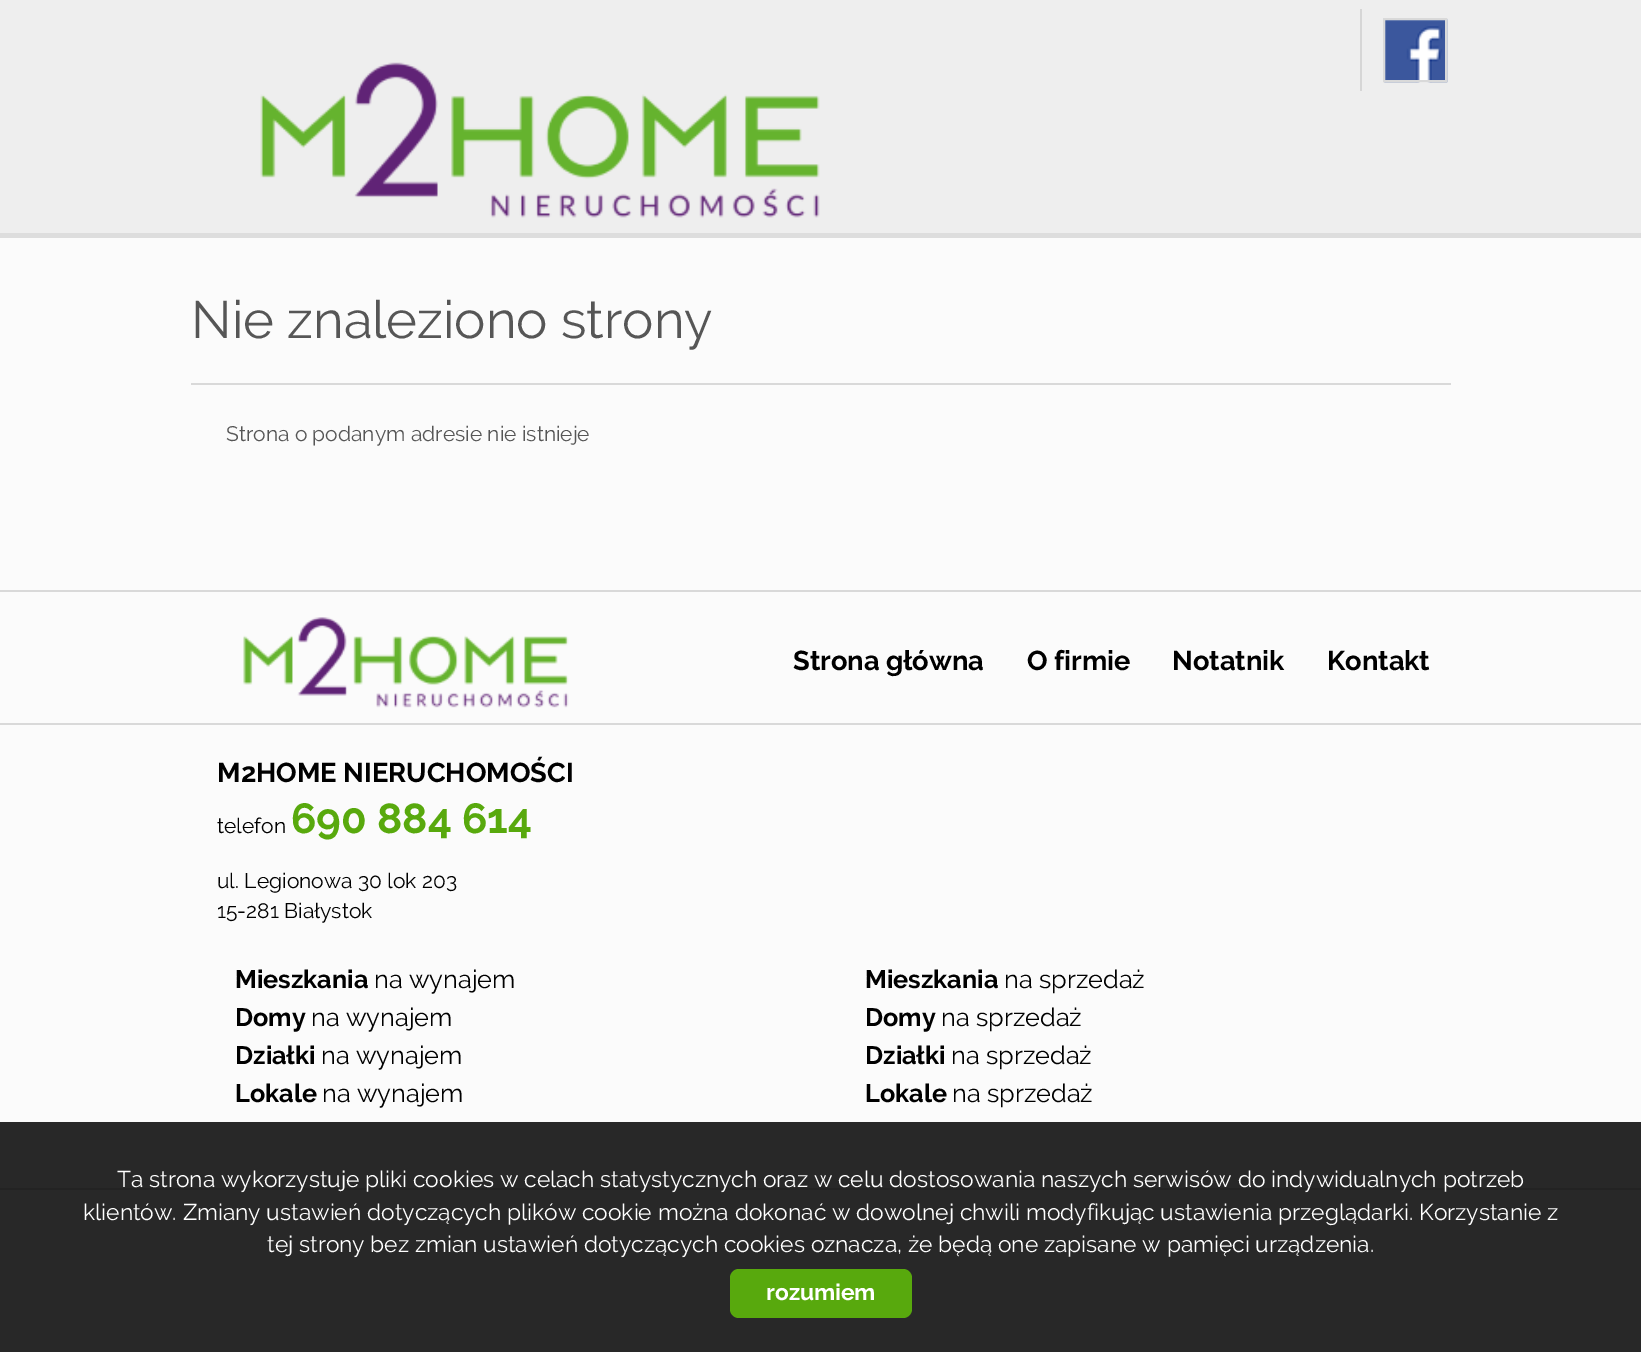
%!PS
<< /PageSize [1641 1352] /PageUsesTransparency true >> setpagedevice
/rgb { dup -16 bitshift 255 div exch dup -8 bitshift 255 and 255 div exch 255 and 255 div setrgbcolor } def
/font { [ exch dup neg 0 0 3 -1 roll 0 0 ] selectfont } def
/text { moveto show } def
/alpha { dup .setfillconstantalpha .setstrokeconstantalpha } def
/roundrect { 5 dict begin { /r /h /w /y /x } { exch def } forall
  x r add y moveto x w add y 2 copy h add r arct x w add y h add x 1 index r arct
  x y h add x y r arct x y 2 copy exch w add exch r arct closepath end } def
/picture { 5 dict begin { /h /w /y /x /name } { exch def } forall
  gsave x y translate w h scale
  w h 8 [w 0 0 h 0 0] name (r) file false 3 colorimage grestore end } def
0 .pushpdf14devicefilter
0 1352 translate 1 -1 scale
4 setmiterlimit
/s1 { /Raleway-Regular 52.5 font 16#565656 rgb } def
/s2 { /Raleway-Regular 21 font 16#565656 rgb } def
/s3 { /Raleway-Bold 27.25 font 16#000000 rgb } def
/s4 { /Raleway-Regular 21 font 16#000000 rgb } def
/s5 { /Raleway-Bold 42 font 16#58A90D rgb } def
/s6 { /Raleway-Bold 25.25 font 16#000000 rgb } def
/s7 { /Raleway-Regular 25.25 font 16#000000 rgb } def
/s8 { /Raleway-Regular 22.75 font 16#FFFFFF rgb } def
/s9 { /Raleway-Bold 22.75 font 16#FFFFFF rgb } def
16#FBFBFB rgb
0 0 1641 1352 rectfill
16#EEEEEE rgb
0 0 1641 233 rectfill
16#DDDDDD rgb
0 233 1641 5 rectfill
16#D6D6D6 rgb
1360 9 2 82 rectfill
(pic1.raw) 1384 19 64 64 picture
16#D9D9D9 rgb
2 setlinewidth
1384 19 62 62 rectstroke
(pic2.raw) 260 62 560 156 picture
191 383 1260 2 rectfill
s1
(Nie znaleziono strony) 191 338 text
s2
(Strona o podanym adresie nie istnieje) 226 441 text
16#D9D9D9 rgb
0 590 1641 2 rectfill
(pic3.raw) 243 617 326 91 picture
s3
(Strona główna) 793 670 text
(O firmie) 1027 670 text
(Notatnik) 1172 670 text
(Kontakt) 1327 670 text
16#D9D9D9 rgb
0 723 1641 2 rectfill
s3
(M2HOME NIERUCHOMOŚCI) 217 782 text
s4
(telefon) 217 833 text
s5
(690 884 614) 291 833 text
s4
(ul. Legionowa 30 lok 203) 217 888 text
(15-281 Białystok) 217 918 text
s6
(Mieszkania) 235 988 text
s7
(na wynajem) 374 988 text
s6
(Domy) 235 1026 text
s7
(na wynajem) 311 1026 text
s6
(Działki) 235 1064 text
s7
(na wynajem) 321 1064 text
s6
(Lokale) 235 1102 text
s7
(na wynajem) 322 1102 text
s6
(Mieszkania) 865 988 text
s7
(na sprzedaż) 1004 988 text
s6
(Domy) 865 1026 text
s7
(na sprzedaż) 941 1026 text
s6
(Działki) 865 1064 text
s7
(na sprzedaż) 951 1064 text
s6
(Lokale) 865 1102 text
s7
(na sprzedaż) 952 1102 text
16#D9D9D9 rgb
0 1188 1641 2 rectfill
0.84 alpha
16#000000 rgb
0 1122 1641 230 rectfill
1 alpha
s8
(Ta strona wykorzystuje pliki cookies w celach statystycznych oraz w celu dostosowania naszych serwisów do indywidualnych potrzeb) 117 1187 text
(klientów. Zmiany ustawień dotyczących plików cookie można dokonać w dowolnej chwili modyfikując ustawienia przeglądarki. Korzystanie z) 83 1220 text
(tej strony bez zmian ustawień dotyczących cookies oznacza, że będą one zapisane w pamięci urządzenia.) 267 1252 text
16#58A90D rgb
730 1269 182 49 9 roundrect fill
s9
(rozumiem) 766 1300 text
.poppdf14devicefilter showpage
